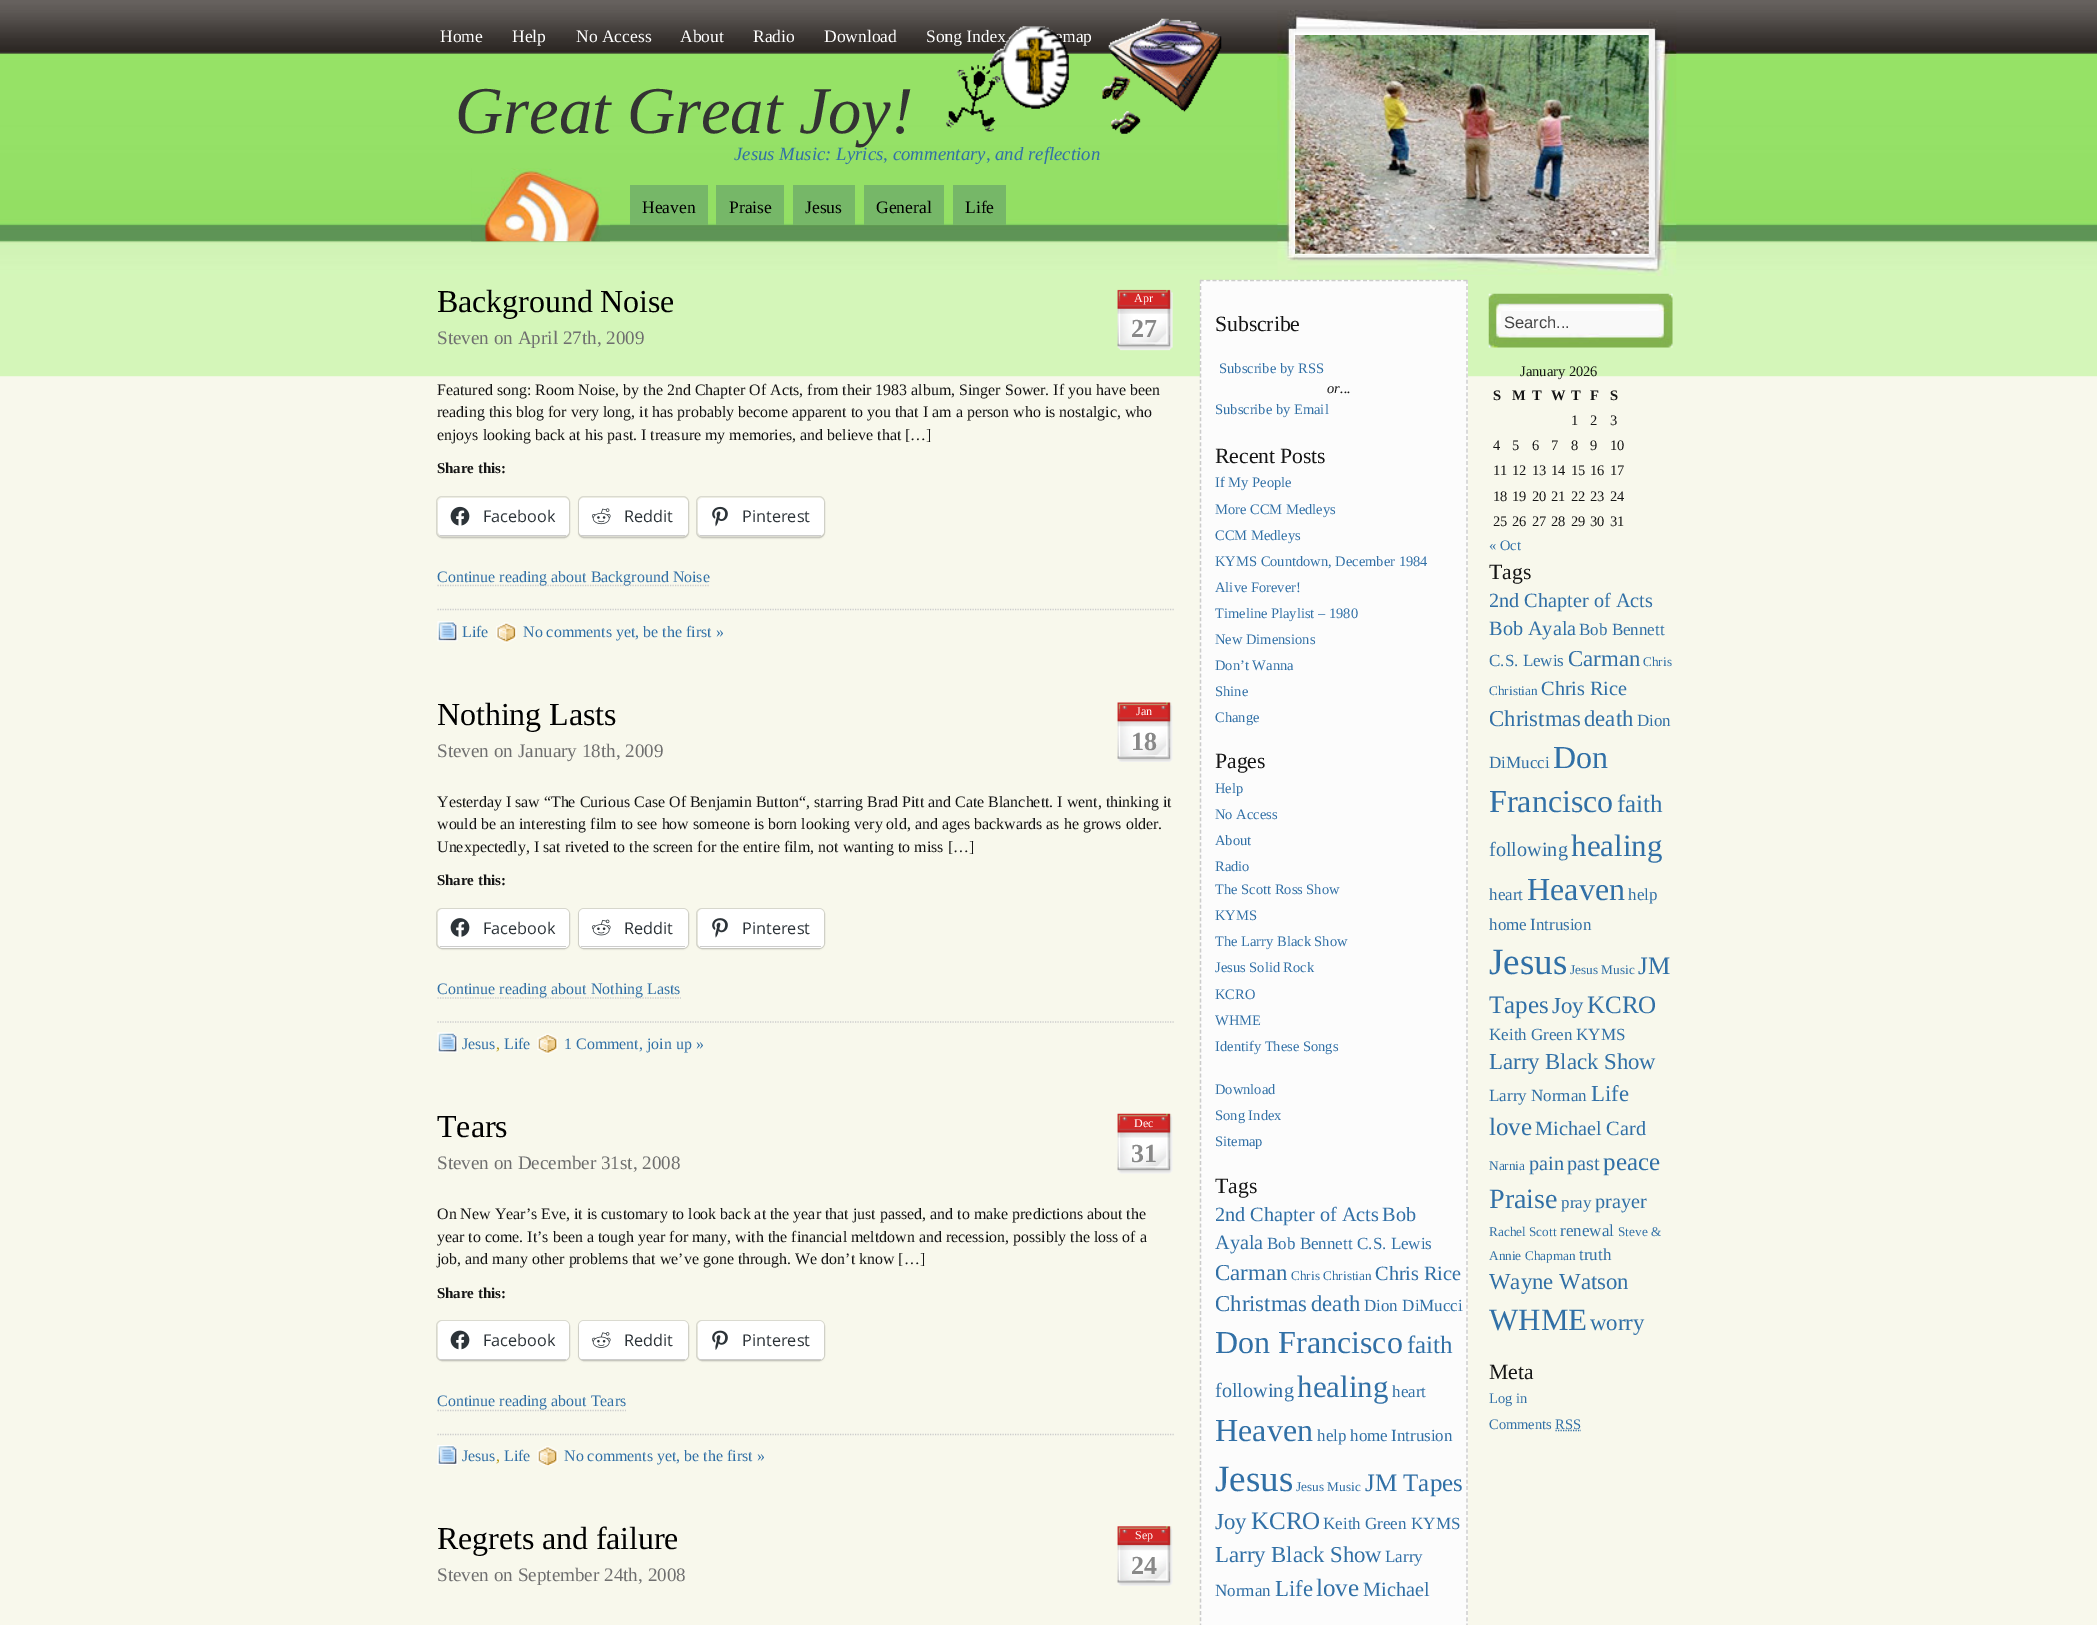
%!PS
<< /PageSize [2097 1625] /PageUsesTransparency true >> setpagedevice
/rgb { dup -16 bitshift 255 div exch dup -8 bitshift 255 and 255 div exch 255 and 255 div setrgbcolor } def
/font { [ exch dup neg 0 0 3 -1 roll 0 0 ] selectfont } def
/text { moveto show } def
/alpha { dup .setfillconstantalpha .setstrokeconstantalpha } def
/roundrect { 5 dict begin { /r /h /w /y /x } { exch def } forall
  x r add y moveto x w add y 2 copy h add r arct x w add y h add x 1 index r arct
  x y h add x y r arct x y 2 copy exch w add exch r arct closepath end } def
/shadow { 12 dict begin { /a /b /q /h /w /y /x } { exch def } forall gsave /was 0 def
  9 -2 -9 { dup b mul 4 div /e exch def 1 sub .425 mul 2.718 exch exp 1 add a .99 .min exch div /now exch def
    1 1 now sub 1 was sub div sub alpha /was now def
    w h .min e 2 mul add 0 gt { x e sub y e sub w e 2 mul add h e 2 mul add
      q e add b .6 mul add w h .min 2 div e add .min 0 .max roundrect fill } if } for grestore end } def
/picture { 5 dict begin { /h /w /y /x /name } { exch def } forall
  gsave x y translate w h scale
  w h 8 [w 0 0 h 0 0] name (r) file false 3 colorimage grestore end } def
0 .pushpdf14devicefilter
0 1625 translate 1 -1 scale
4 setmiterlimit
/s1 { /LiberationSerif-Regular 17.5 font 16#FFFFFF rgb } def
/s2 { /LiberationSerif-Italic 18.8 font 16#3170A6 rgb } def
/s3 { /LiberationSerif-Regular 17.5 font 16#000000 rgb } def
/s4 { /LiberationSerif-Regular 12 font 16#FFFFFF rgb } def
/s5 { /LiberationSerif-Bold 26 font 16#888888 rgb } def
/s6 { /LiberationSerif-Regular 19.1 font 16#6F6F6F rgb } def
/s7 { /LiberationSerif-Regular 15.95 font 16#151515 rgb } def
/s8 { /OpenSans-Regular 16.25 font 16#2C3338 rgb } def
/s9 { /LiberationSerif-Regular 15.95 font 16#3170A6 rgb } def
/s10 { /LiberationSerif-Regular 15.95 font 16#B3960E rgb } def
/s11 { /LiberationSerif-Regular 14.5 font 16#3170A6 rgb } def
/s12 { /LiberationSerif-Italic 14.5 font 16#151515 rgb } def
/s13 { /LiberationSerif-Regular 20.25 font 16#3170A6 rgb } def
/s14 { /LiberationSerif-Regular 17 font 16#3170A6 rgb } def
/s15 { /LiberationSerif-Regular 22.75 font 16#3170A6 rgb } def
/s16 { /LiberationSerif-Regular 13.25 font 16#3170A6 rgb } def
/s17 { /LiberationSerif-Regular 32 font 16#3170A6 rgb } def
/s18 { /LiberationSerif-Regular 25 font 16#3170A6 rgb } def
/s19 { /LiberationSerif-Regular 31 font 16#3170A6 rgb } def
/s20 { /LiberationSerif-Regular 37 font 16#3170A6 rgb } def
/s21 { /LiberationSans-Regular 16.5 font 16#454545 rgb } def
/s22 { /LiberationSerif-Regular 14.5 font 16#151515 rgb } def
/s23 { /LiberationSerif-Bold 14.5 font 16#151515 rgb } def
/s24 { /LiberationSerif-Regular 28 font 16#3170A6 rgb } def
16#F8F8EC rgb
0 0 2097 1625 rectfill
(pic1.raw) 0 0 2097 377 picture
s1
(Song Index) 926 42 text
(map) 1062 42 text
(pic2.raw) 946 26 123 106 picture
(pic3.raw) 1102 18 120 116 picture
(pic4.raw) 1277 10 400 266 picture
(pic5.raw) 1295 35 354 219 picture
(Home) 440 42 text
(Help) 512 42 text
(No Access) 576 42 text
(About) 680 42 text
(Radio) 753 42 text
(Download) 824 42 text
/LiberationSerif-Italic 66.75 font
16#333333 rgb
455 133 moveto -0.1 0 (Great Great Joy!) ashow
s2
(Jesus Music: Lyrics, commentary, and reflection) 734 160 text
(pic6.raw) 471 168 139 74 picture
16#76B768 rgb
630 185 78 40 rectfill
s3
(Heaven) 642 213 text
16#76B768 rgb
716 185 68 40 rectfill
s3
(Praise) 729 213 text
16#76B768 rgb
793 185 62 40 rectfill
s3
(Jesus) 805 213 text
16#76B768 rgb
864 185 80 40 rectfill
s3
(General) 876 213 text
16#76B768 rgb
953 185 53 40 rectfill
s3
(Life) 965 213 text
/LiberationSerif-Regular 32 font
437 312 moveto -0.1 0 (Background Noise) ashow
(pic7.raw) 1117 289 56 62 picture
s4
(Apr) 1134 302 text
s5
(27) 1131 337 text
s6
(Steven on April 27th, 2009) 437 344 text
s7
(Featured song: Room Noise, by the 2nd Chapter Of Acts, from their 1983 album, Singer Sower. If you have been) 437 395 text
(reading this blog for very long, it has probably become apparent to you that I am a person who is nostalgic, who) 437 417 text
(enjoys looking back at his past. I treasure my memories, and believe that […]) 437 440 text
/LiberationSerif-Bold 15 font
437 473 moveto -0.1 0 (Share this:) ashow
16#DADAD0 rgb
436.5 496.5 133 41 5.5 roundrect stroke
16#000000 rgb
438 499 131 39 5 1 0.12 shadow
16#FFFFFF rgb
438 498 131 38 5 roundrect fill
16#CCCCCC rgb
440 535 126 1 rectfill
(pic8.raw) 450 506 20 20 picture
s8
(Facebook) 483 522 text
16#DADAD0 rgb
578.5 496.5 110 41 5.5 roundrect stroke
16#000000 rgb
579 499 109 39 5 1 0.12 shadow
16#FFFFFF rgb
579 498 109 38 5 roundrect fill
16#CCCCCC rgb
581 535 104 1 rectfill
(pic9.raw) 591 508 20 17 picture
s8
(Reddit) 624 522 text
16#DADAD0 rgb
696.5 496.5 128 41 5.5 roundrect stroke
16#000000 rgb
698 499 126 39 5 1 0.12 shadow
16#FFFFFF rgb
698 498 126 38 5 roundrect fill
16#CCCCCC rgb
700 535 121 1 rectfill
(pic10.raw) 712 506 16 21 picture
s8
(Pinterest) 742 522 text
16#CCCCCC rgb
1.2 setlinewidth
[1.25 1.25] 0 setdash
437.5 585.5 moveto 710 585.5 lineto stroke
s9
(Continue reading about Background Noise) 437 582 text
16#CCCCCC rgb
437.5 609.5 moveto 1175 609.5 lineto stroke
(pic11.raw) 437 621 21 21 picture
s9
(Life) 462 637 text
(pic12.raw) 496 622 21 21 picture
(No comments yet, be the first ») 523 637 text
/LiberationSerif-Regular 32 font
16#000000 rgb
437 725 moveto -0.1 0 (Nothing Lasts) ashow
(pic13.raw) 1117 702 56 60 picture
s4
(Jan) 1136 715 text
s5
(18) 1131 750 text
s6
(Steven on January 18th, 2009) 437 757 text
s7
(Yesterday I saw “The Curious Case Of Benjamin Button“, starring Brad Pitt and Cate Blanchett. I went, thinking it) 437 807 text
(would be an interesting film to see how someone is born looking very old, and ages backwards as he grows older.) 437 829 text
(Unexpectedly, I sat riveted to the screen for the entire film, not wanting to miss […]) 437 852 text
/LiberationSerif-Bold 15 font
437 885 moveto -0.1 0 (Share this:) ashow
16#DADAD0 rgb
1 setlinewidth
[] 0 setdash
436.5 908.5 133 40 5.5 roundrect stroke
16#000000 rgb
438 910 131 39 5 1 0.12 shadow
16#FFFFFF rgb
438 909 131 39 5 roundrect fill
16#CCCCCC rgb
440 946 126 1 rectfill
(pic14.raw) 450 918 20 19 picture
s8
(Facebook) 483 934 text
16#DADAD0 rgb
578.5 908.5 110 40 5.5 roundrect stroke
16#000000 rgb
579 910 109 39 5 1 0.12 shadow
16#FFFFFF rgb
579 909 109 39 5 roundrect fill
16#CCCCCC rgb
581 946 104 1 rectfill
(pic15.raw) 591 919 20 17 picture
s8
(Reddit) 624 934 text
16#DADAD0 rgb
696.5 908.5 128 40 5.5 roundrect stroke
16#000000 rgb
698 910 126 39 5 1 0.12 shadow
16#FFFFFF rgb
698 909 126 39 5 roundrect fill
16#CCCCCC rgb
700 946 121 1 rectfill
(pic16.raw) 712 918 16 20 picture
s8
(Pinterest) 742 934 text
16#CCCCCC rgb
1.2 setlinewidth
[1.25 1.25] 0 setdash
437.5 998 moveto 681 998 lineto stroke
s9
(Continue reading about Nothing Lasts) 437 994 text
16#CCCCCC rgb
437.5 1022 moveto 1175 1022 lineto stroke
(pic17.raw) 437 1032 21 21 picture
s9
(Jesus) 462 1049 text
s10
(,) 496 1049 text
s9
(Life) 504 1049 text
(pic18.raw) 537 1033 21 21 picture
(1 Comment, join up ») 564 1049 text
/LiberationSerif-Regular 32 font
16#000000 rgb
437 1137 moveto -0.1 0 (Tears) ashow
(pic19.raw) 1117 1113 56 61 picture
s4
(Dec) 1134 1127 text
s5
(31) 1131 1162 text
s6
(Steven on December 31st, 2008) 437 1169 text
s7
(On New Year’s Eve, it is customary to look back at the year that just passed, and to make predictions about the) 437 1219 text
(year to come. It’s been a tough year for many, with the financial meltdown and recession, possibly the loss of a) 437 1242 text
(job, and many other problems that we’ve gone through. We don’t know […]) 437 1264 text
/LiberationSerif-Bold 15 font
437 1298 moveto -0.1 0 (Share this:) ashow
16#DADAD0 rgb
1 setlinewidth
[] 0 setdash
436.5 1320.5 133 40 5.5 roundrect stroke
16#000000 rgb
438 1323 131 38 5 1 0.12 shadow
16#FFFFFF rgb
438 1321 131 39 5 roundrect fill
16#CCCCCC rgb
440 1359 126 1 rectfill
(pic20.raw) 450 1330 20 20 picture
s8
(Facebook) 483 1346 text
16#DADAD0 rgb
578.5 1320.5 110 40 5.5 roundrect stroke
16#000000 rgb
579 1323 109 38 5 1 0.12 shadow
16#FFFFFF rgb
579 1321 109 39 5 roundrect fill
16#CCCCCC rgb
581 1359 104 1 rectfill
(pic21.raw) 591 1332 20 16 picture
s8
(Reddit) 624 1346 text
16#DADAD0 rgb
696.5 1320.5 128 40 5.5 roundrect stroke
16#000000 rgb
698 1323 126 38 5 1 0.12 shadow
16#FFFFFF rgb
698 1321 126 39 5 roundrect fill
16#CCCCCC rgb
700 1359 121 1 rectfill
(pic22.raw) 712 1330 16 20 picture
s8
(Pinterest) 742 1346 text
16#CCCCCC rgb
1.2 setlinewidth
[1.25 1.25] 0 setdash
437.5 1410.5 moveto 626 1410.5 lineto stroke
s9
(Continue reading about Tears) 437 1406 text
16#CCCCCC rgb
437.5 1434.5 moveto 1175 1434.5 lineto stroke
(pic23.raw) 437 1445 21 20 picture
s9
(Jesus) 462 1461 text
s10
(,) 496 1461 text
s9
(Life) 504 1461 text
(pic24.raw) 537 1446 21 21 picture
(No comments yet, be the first ») 564 1461 text
/LiberationSerif-Regular 32 font
16#000000 rgb
437 1549 moveto -0.1 0 (Regrets and failure) ashow
(pic25.raw) 1117 1526 56 60 picture
s4
(Sep) 1135 1539 text
s5
(24) 1131 1574 text
s6
(Steven on September 24th, 2008) 437 1581 text
16#FCFCFC rgb
1200 280 268 1345 rectfill
16#CCCCCC rgb
[3.75 2.52] 0 setdash
1200 280.5 moveto 1467.5 280.5 lineto stroke
[3.75 2.5] 0 setdash
1467 280 moveto 1467 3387.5 lineto stroke
1200.5 280 moveto 1200.5 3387.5 lineto stroke
/LiberationSerif-Regular 21.75 font
16#151515 rgb
1215 331 moveto -0.1 0 (Subscribe) ashow
s11
(Subscribe by RSS) 1219 373 text
s12
(or...) 1327 393 text
s11
(Subscribe by Email) 1215 414 text
/LiberationSerif-Regular 21.75 font
16#151515 rgb
1215 463 moveto -0.1 0 (Recent Posts) ashow
s11
(If My People) 1215 487 text
(More CCM Medleys) 1215 514 text
(CCM Medleys) 1215 540 text
(KYMS Countdown, December 1984) 1215 566 text
(Alive Forever!) 1215 592 text
(Timeline Playlist – 1980) 1215 618 text
(New Dimensions) 1215 644 text
(Don’t Wanna) 1215 670 text
(Shine) 1215 696 text
(Change) 1215 722 text
/LiberationSerif-Regular 21.75 font
16#151515 rgb
1215 768 moveto -0.1 0 (Pages) ashow
s11
(Help) 1215 793 text
(No Access) 1215 819 text
(About) 1215 845 text
(Radio) 1215 871 text
(The Scott Ross Show) 1215 894 text
(KYMS) 1215 920 text
(The Larry Black Show) 1215 946 text
(Jesus Solid Rock) 1215 972 text
(KCRO) 1215 999 text
(WHME) 1215 1025 text
(Identify These Songs) 1215 1051 text
(Download) 1215 1094 text
(Song Index) 1215 1120 text
(Sitemap) 1215 1146 text
/LiberationSerif-Regular 21.75 font
16#151515 rgb
1215 1193 moveto -0.1 0 (Tags) ashow
s13
(2nd Chapter of Acts) 1215 1221 text
(Bob) 1382 1221 text
(Ayala) 1215 1249 text
s14
(Bob Bennett) 1267 1249 text
(C.S. Lewis) 1357 1249 text
s15
(Carman) 1215 1280 text
s16
(Chris Christian) 1291 1280 text
s13
(Chris Rice) 1375 1280 text
s15
(Christmas) 1215 1311 text
(death) 1311 1311 text
s14
(Dion DiMucci) 1364 1311 text
s17
(Don Francisco) 1215 1353 text
s18
(faith) 1407 1353 text
s13
(following) 1215 1397 text
s19
(healing) 1297 1397 text
s14
(heart) 1392 1397 text
s17
(Heaven) 1215 1441 text
s14
(help) 1317 1441 text
(home) 1350 1441 text
(Intrusion) 1391 1441 text
s20
(Jesus) 1215 1491 text
s16
(Jesus Music) 1296 1491 text
s18
(JM Tapes) 1365 1491 text
s15
(Joy) 1215 1529 text
s18
(KCRO) 1251 1529 text
s14
(Keith Green) 1323 1529 text
(KYMS) 1411 1529 text
s15
(Larry Black Show) 1215 1562 text
s14
(Larry) 1385 1562 text
(Norman) 1215 1596 text
s15
(Life) 1275 1596 text
s18
(love) 1316 1596 text
s13
(Michael) 1363 1596 text
(pic26.raw) 1488 293 185 55 picture
16#F9F9F9 rgb
1501 311 162 22 rectfill
s21
(Search...) 1504 328 text
s22
(January 2026) 1520 376 text
s23
(S) 1493 400 text
(M) 1512 400 text
(T) 1532 400 text
(W) 1551 400 text
(T) 1571 400 text
(F) 1590 400 text
(S) 1610 400 text
s22
(1) 1571 425 text
(2) 1590 425 text
(3) 1610 425 text
(4) 1493 450 text
(5) 1512 450 text
(6) 1532 450 text
(7) 1551 450 text
(8) 1571 450 text
(9) 1590 450 text
(10) 1610 450 text
(11) 1493 475 text
(12) 1512 475 text
(13) 1532 475 text
(14) 1551 475 text
(15) 1571 475 text
(16) 1590 475 text
(17) 1610 475 text
(18) 1493 501 text
(19) 1512 501 text
(20) 1532 501 text
(21) 1551 501 text
(22) 1571 501 text
(23) 1590 501 text
(24) 1610 501 text
(25) 1493 526 text
(26) 1512 526 text
(27) 1532 526 text
(28) 1551 526 text
(29) 1571 526 text
(30) 1590 526 text
(31) 1610 526 text
s11
(« Oct) 1489 550 text
/LiberationSerif-Regular 21.75 font
16#151515 rgb
1489 579 moveto -0.1 0 (Tags) ashow
s13
(2nd Chapter of Acts) 1489 607 text
(Bob Ayala) 1489 635 text
s14
(Bob Bennett) 1579 635 text
(C.S. Lewis) 1489 666 text
s15
(Carman) 1568 666 text
s16
(Chris) 1643 666 text
(Christian) 1489 695 text
s13
(Chris Rice) 1541 695 text
s15
(Christmas) 1489 726 text
(death) 1584 726 text
s14
(Dion) 1637 726 text
(DiMucci) 1489 768 text
s17
(Don) 1553 768 text
(Francisco) 1489 812 text
s18
(faith) 1617 812 text
s13
(following) 1489 856 text
s19
(healing) 1571 856 text
s14
(heart) 1489 900 text
s17
(Heaven) 1527 900 text
s14
(help) 1628 900 text
(home) 1489 930 text
(Intrusion) 1530 930 text
s20
(Jesus) 1489 974 text
s16
(Jesus Music) 1570 974 text
s18
(JM) 1638 974 text
(Tapes) 1489 1013 text
s15
(Joy) 1552 1013 text
s18
(KCRO) 1587 1013 text
s14
(Keith Green) 1489 1040 text
(KYMS) 1576 1040 text
s15
(Larry Black Show) 1489 1069 text
s14
(Larry Norman) 1489 1101 text
s15
(Life) 1591 1101 text
s18
(love) 1489 1135 text
s13
(Michael Card) 1535 1135 text
s16
(Narnia) 1489 1170 text
s13
(pain) 1529 1170 text
(past) 1567 1170 text
s18
(peace) 1603 1170 text
s24
(Praise) 1489 1208 text
s14
(pray) 1561 1208 text
s13
(prayer) 1595 1208 text
s16
(Rachel Scott) 1489 1236 text
s14
(renewal) 1560 1236 text
s16
(Steve &) 1618 1236 text
(Annie Chapman) 1489 1260 text
s14
(truth) 1579 1260 text
s15
(Wayne Watson) 1489 1289 text
s19
(WHME) 1489 1330 text
s15
(worry) 1590 1330 text
/LiberationSerif-Regular 21.75 font
16#151515 rgb
1489 1379 moveto -0.1 0 (Meta) ashow
s11
(Log in) 1489 1403 text
(Comments) 1489 1429 text
[1.25 1.25] 0 setdash
1555.5 1430.5 moveto 1581 1430.5 lineto stroke
(RSS) 1555 1429 text
.poppdf14devicefilter showpage
